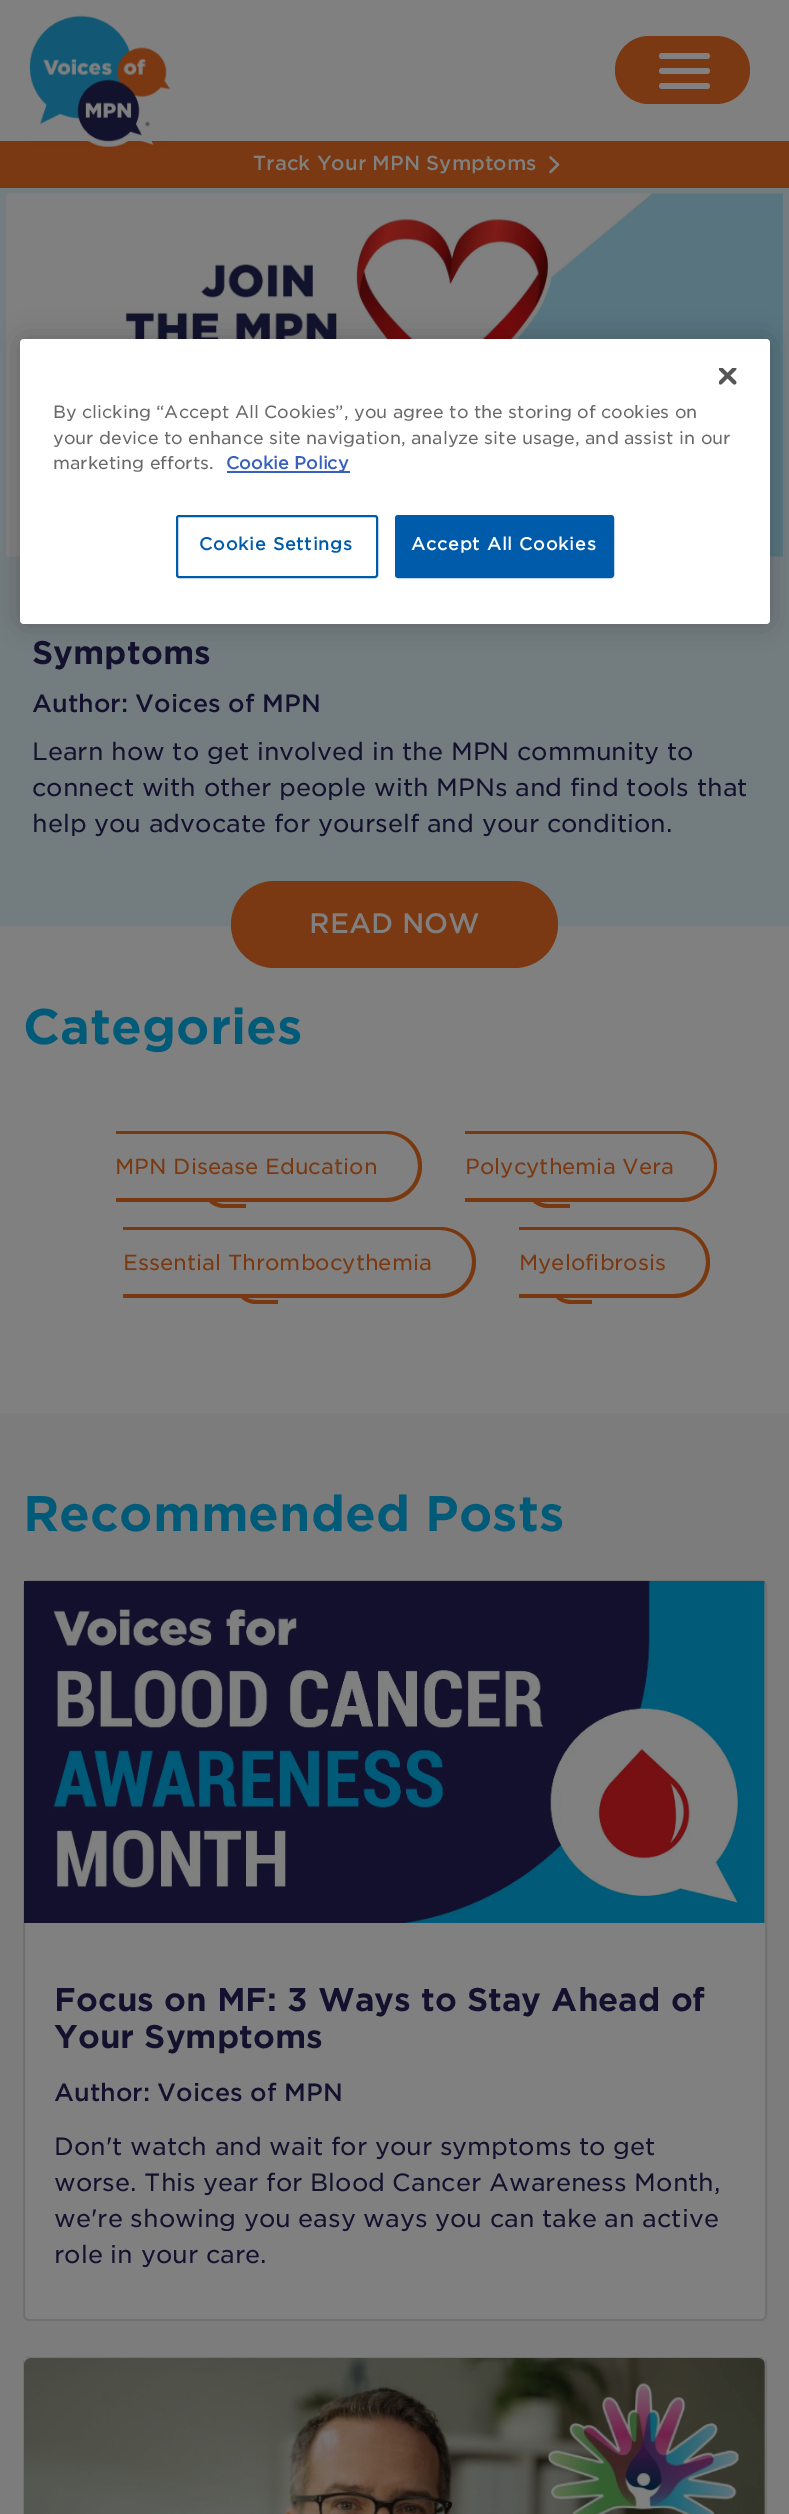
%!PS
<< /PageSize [789 2514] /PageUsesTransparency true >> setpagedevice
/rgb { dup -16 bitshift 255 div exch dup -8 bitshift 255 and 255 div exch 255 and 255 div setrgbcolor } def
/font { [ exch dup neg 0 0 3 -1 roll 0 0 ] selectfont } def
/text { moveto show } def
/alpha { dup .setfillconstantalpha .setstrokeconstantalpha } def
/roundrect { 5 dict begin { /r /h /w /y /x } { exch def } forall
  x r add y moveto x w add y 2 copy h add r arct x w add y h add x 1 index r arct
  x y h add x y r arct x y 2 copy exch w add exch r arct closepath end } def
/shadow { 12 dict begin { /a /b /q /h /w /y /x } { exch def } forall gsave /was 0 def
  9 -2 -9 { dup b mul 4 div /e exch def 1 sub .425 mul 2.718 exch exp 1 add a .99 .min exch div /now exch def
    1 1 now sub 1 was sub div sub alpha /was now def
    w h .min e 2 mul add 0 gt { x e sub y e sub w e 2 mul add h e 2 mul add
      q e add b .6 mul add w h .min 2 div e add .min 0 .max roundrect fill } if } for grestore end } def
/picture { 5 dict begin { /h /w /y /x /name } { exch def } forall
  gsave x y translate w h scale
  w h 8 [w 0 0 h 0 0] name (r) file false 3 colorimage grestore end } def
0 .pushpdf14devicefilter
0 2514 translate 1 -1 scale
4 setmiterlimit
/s1 { /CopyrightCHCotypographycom-Light 19.5 font 16#808080 rgb } def
/s2 { /CopyrightCHCotypographycom-Regular 31.5 font 16#13112D rgb } def
/s3 { /CopyrightCHCotypographycom-Light 24 font 16#13112D rgb } def
/s4 { /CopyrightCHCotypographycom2-Light 24 font 16#13112D rgb } def
/s5 { /CopyrightCHCotypographycom-Light 27 font 16#808080 rgb } def
/s6 { /CopyrightCHCotypographycom-Regular 48 font 16#005A78 rgb } def
/s7 { /CopyrightCHCotypographycom2-Light 21.1 font 16#7A3811 rgb } def
/s8 { /CopyrightCHCotypographycom2-Light 17.05 font 16#696969 rgb } def
/s9 { /CopyrightCHCotypographycom-Bold 17.05 font 16#3860BE rgb } def
16#808080 rgb
0 0 789 2514 rectfill
16#7A3912 rgb
0 141 789 47 rectfill
(pic1.raw) 29 15 142 132 picture
615 36 135 68 34 roundrect fill
16#808080 rgb
659 53 51 6 3 roundrect fill
659 68 51 6 3 roundrect fill
659 83 51 6 3 roundrect fill
s1
(Track Your MPN Symptoms) 253 170 text
2.2 setlinewidth
1 setlinecap
1 setlinejoin
550.5 157.5 moveto 558 164.5 lineto 550.5 172 lineto stroke
16#737C7F rgb
0 188 789 738 rectfill
(pic2.raw) 6 193 777 364 picture
s2
(Symptoms) 32 664 text
s3
(Author: Voices of MPN) 32 712 text
s4
(Learn how to get involved in the MPN community to) 32 760 text
(connect with other people with MPNs and find tools that) 32 796 text
(help you advocate for yourself and your condition.) 32 832 text
16#7A3912 rgb
231 881 327 87 43.5 roundrect fill
s5
(READ NOW) 309 933 text
s6
(Categories) 23 1044 text
16#7A3811 rgb
224 1143 moveto 246 1143 lineto 246 1208 lineto 224 1208 lineto 212 1208 202 1198 202 1186 curveto 202 1165 lineto 202 1153 212 1143 224 1143 curveto closepath 224 1146 moveto 246 1146 lineto 246 1204 lineto 224 1204 lineto 214 1204 206 1196 206 1186 curveto 206 1165 lineto 206 1154 214 1146 224 1146 curveto closepath eofill
16#808080 rgb
116 1131 moveto 386.5 1131 lineto 406 1131 422 1147 422 1166.5 curveto 422 1186 406 1202 386.5 1202 curveto 116 1202 lineto closepath fill
16#7A3811 rgb
116 1131 moveto 386 1131 lineto 406 1131 422 1147 422 1166 curveto 422 1186 406 1202 386 1202 curveto 116 1202 lineto closepath 116 1134 moveto 386 1134 lineto 404 1134 418 1148 418 1166 curveto 418 1184 404 1198 386 1198 curveto 116 1198 lineto closepath eofill
s7
(MPN Disease Education) 115 1174 text
548 1143 moveto 570 1143 lineto 570 1208 lineto 548 1208 lineto 536 1208 526 1198 526 1186 curveto 526 1165 lineto 526 1153 536 1143 548 1143 curveto closepath 548 1146 moveto 570 1146 lineto 570 1204 lineto 548 1204 lineto 538 1204 530 1196 530 1186 curveto 530 1165 lineto 530 1154 538 1146 548 1146 curveto closepath eofill
16#808080 rgb
465 1131 moveto 681.5 1131 lineto 701 1131 717 1147 717 1166.5 curveto 717 1186 701 1202 681.5 1202 curveto 465 1202 lineto closepath fill
16#7A3811 rgb
465 1131 moveto 682 1131 lineto 701 1131 717 1147 717 1166 curveto 717 1186 701 1202 682 1202 curveto 465 1202 lineto closepath 465 1134 moveto 682 1134 lineto 700 1134 714 1148 714 1166 curveto 714 1184 700 1198 682 1198 curveto 465 1198 lineto closepath eofill
(Polycythemia Vera) 465 1174 text
256 1239 moveto 278 1239 lineto 278 1304 lineto 256 1304 lineto 244 1304 234 1294 234 1282 curveto 234 1261 lineto 234 1249 244 1239 256 1239 curveto closepath 256 1242 moveto 278 1242 lineto 278 1300 lineto 256 1300 lineto 245 1300 237 1292 237 1282 curveto 237 1261 lineto 237 1250 245 1242 256 1242 curveto closepath eofill
16#808080 rgb
123 1227 moveto 440.5 1227 lineto 460 1227 476 1243 476 1262.5 curveto 476 1282 460 1298 440.5 1298 curveto 123 1298 lineto closepath fill
16#7A3811 rgb
123 1227 moveto 440 1227 lineto 460 1227 476 1243 476 1262 curveto 476 1282 460 1298 440 1298 curveto 123 1298 lineto closepath 123 1230 moveto 440 1230 lineto 458 1230 472 1244 472 1262 curveto 472 1280 458 1294 440 1294 curveto 123 1294 lineto closepath eofill
(Essential Thrombocythemia) 123 1270 text
571 1239 moveto 592 1239 lineto 592 1304 lineto 571 1304 lineto 559 1304 549 1294 549 1282 curveto 549 1261 lineto 549 1249 559 1239 571 1239 curveto closepath 571 1242 moveto 592 1242 lineto 592 1300 lineto 571 1300 lineto 560 1300 552 1292 552 1282 curveto 552 1261 lineto 552 1250 560 1242 571 1242 curveto closepath eofill
16#808080 rgb
519 1227 moveto 674.5 1227 lineto 694 1227 710 1243 710 1262.5 curveto 710 1282 694 1298 674.5 1298 curveto 519 1298 lineto closepath fill
16#7A3811 rgb
519 1227 moveto 674 1227 lineto 694 1227 710 1243 710 1262 curveto 710 1282 694 1298 674 1298 curveto 519 1298 lineto closepath 519 1230 moveto 674 1230 lineto 692 1230 706 1244 706 1262 curveto 706 1280 692 1294 674 1294 curveto 519 1294 lineto closepath eofill
(Myelofibrosis) 519 1270 text
16#7C7C7C rgb
0 1413 789 1101 rectfill
s6
(Recommended Posts) 23 1531 text
16#808080 rgb
24 1581 742 739 5 roundrect gsave fill grestore
16#707070 rgb
2 setlinewidth
0 setlinecap
0 setlinejoin
stroke
(pic3.raw) 24 1581 741 342 picture
s2
(Focus on MF: 3 Ways to Stay Ahead of) 54 2011 text
(Your Symptoms) 54 2048 text
s3
(Author: Voices of MPN) 54 2101 text
s4
(Don't watch and wait for your symptoms to get) 54 2155 text
(worse. This year for Blood Cancer Awareness Month,) 54 2191 text
(we're showing you easy ways you can take an active) 54 2227 text
(role in your care.) 54 2263 text
16#707070 rgb
24 2358 742 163 5 roundrect stroke
(pic4.raw) 24 2358 741 156 picture
16#000000 rgb
20 339 750 285 4 13.5 0.2 shadow
16#FFFFFF rgb
20 339 750 285 4 roundrect fill
(pic5.raw) 719 368 18 17 picture
s8
(By clicking “Accept All Cookies”, you agree to the storing of cookies on) 53 418 text
(your device to enhance site navigation, analyze site usage, and assist in our) 53 444 text
(marketing efforts.) 53 469 text
16#3860BE rgb
227 471 123 2 rectfill
s9
(Cookie Policy) 226 469 text
16#005CAB rgb
177 516 200 61 2 roundrect stroke
199 550 moveto 0.8 0 (Cookie Settings) ashow
396 516 217 61 2 roundrect gsave fill grestore
stroke
16#FFFFFF rgb
411 550 moveto 0.8 0 (Accept All Cookies) ashow
.poppdf14devicefilter showpage
